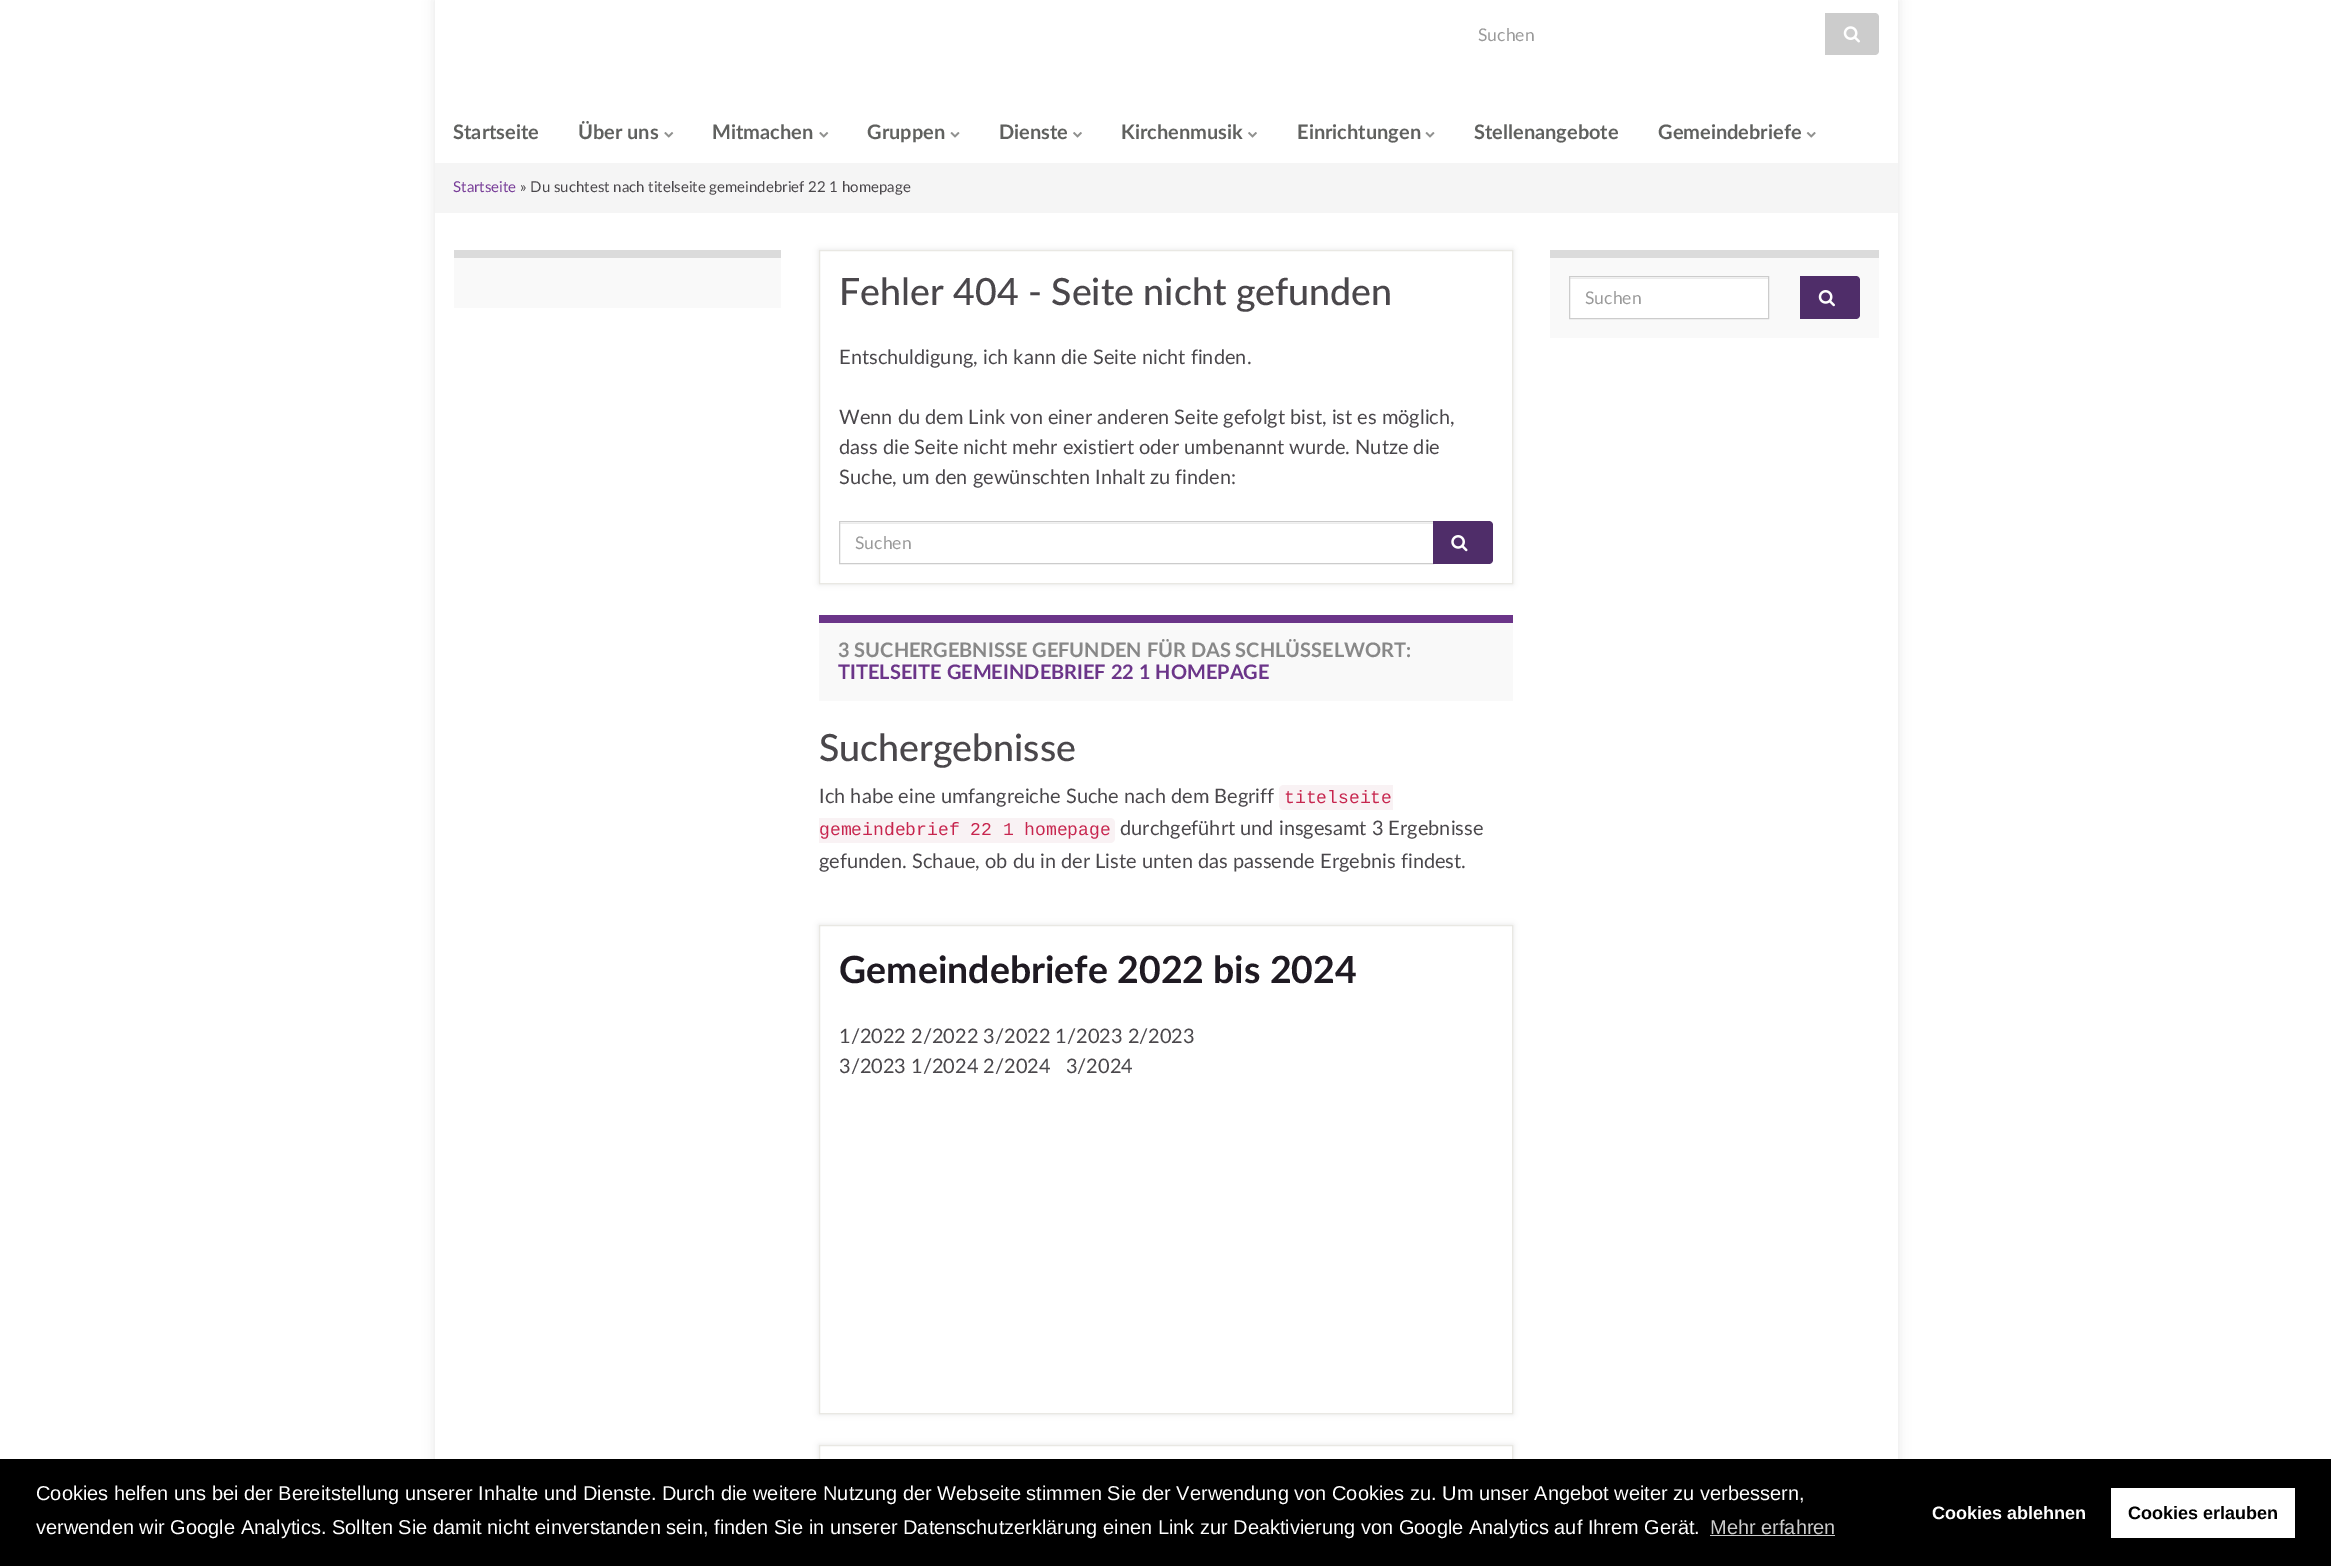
%!PS
<< /PageSize [2331 1566] /PageUsesTransparency true >> setpagedevice
/rgb { dup -16 bitshift 255 div exch dup -8 bitshift 255 and 255 div exch 255 and 255 div setrgbcolor } def
/font { [ exch dup neg 0 0 3 -1 roll 0 0 ] selectfont } def
/text { moveto show } def
/alpha { dup .setfillconstantalpha .setstrokeconstantalpha } def
/roundrect { 5 dict begin { /r /h /w /y /x } { exch def } forall
  x r add y moveto x w add y 2 copy h add r arct x w add y h add x 1 index r arct
  x y h add x y r arct x y 2 copy exch w add exch r arct closepath end } def
/shadow { 12 dict begin { /a /b /q /h /w /y /x } { exch def } forall gsave /was 0 def
  9 -2 -9 { dup b mul 4 div /e exch def 1 sub .425 mul 2.718 exch exp 1 add a .99 .min exch div /now exch def
    1 1 now sub 1 was sub div sub alpha /was now def
    w h .min e 2 mul add 0 gt { x e sub y e sub w e 2 mul add h e 2 mul add
      q e add b .6 mul add w h .min 2 div e add .min 0 .max roundrect fill } if } for grestore end } def
/picture { 5 dict begin { /h /w /y /x /name } { exch def } forall
  gsave x y translate w h scale
  w h 8 [w 0 0 h 0 0] name (r) file false 3 colorimage grestore end } def
0 .pushpdf14devicefilter
0 1566 translate 1 -1 scale
4 setmiterlimit
/s1 { /Lato-Regular 17.5 font 16#999999 rgb } def
/s2 { /Lato-Bold 20 font 16#60615F rgb } def
/s3 { /Lato-Regular 15 font 16#783D98 rgb } def
/s4 { /Lato-Regular 15 font 16#4A474B rgb } def
/s5 { /Lato-Medium 37.5 font 16#4A474B rgb } def
/s6 { /Lato-Regular 20 font 16#4A474B rgb } def
/s7 { /Lato-Bold 20 font 16#888888 rgb } def
/s8 { /Lato-Bold 20 font 16#6B3589 rgb } def
/s9 { /LiberationMono-Regular 18 font 16#C7254E rgb } def
/s10 { /Lato-Bold 37.5 font 16#1F1A22 rgb } def
/s11 { /LiberationSans-Regular 20 font 16#FFFFFF rgb } def
/s12 { /LiberationSans-Regular 20 font 16#CCCCCC rgb } def
/s13 { /LiberationSans-Bold 18 font 16#FFFFFF rgb } def
/s14 { /LiberationSans-Bold 18 font 16#000000 rgb } def
16#FFFFFF rgb
0 0 2331 1566 rectfill
16#000000 rgb
435 0 1463 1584 0 6 0.1 shadow
16#FFFFFF rgb
435 0 1463 163 rectfill
s1
(Suchen) 1478 41 text
16#CCCCCC rgb
1825 13 moveto 1875 13 lineto 1877 13 1879 15 1879 17 curveto 1879 51 lineto 1879 53 1877 55 1875 55 curveto 1825 55 lineto closepath fill
(pic1.raw) 1843 26 17 17 picture
s2
(Startseite) 453 139 text
(Über uns) 578 139 text
(pic2.raw) 664 132 10 6 picture
(Mitmachen) 712 139 text
(pic2.raw) 819 132 10 6 picture
(Gruppen) 867 139 text
(pic3.raw) 950 132 10 6 picture
(Dienste) 999 139 text
(pic4.raw) 1073 132 9 6 picture
(Kirchenmusik) 1121 139 text
(pic4.raw) 1248 132 9 6 picture
(Einrichtungen) 1297 139 text
(pic3.raw) 1425 132 10 6 picture
(Stellenangebote) 1474 139 text
(Gemeindebriefe) 1658 139 text
(pic5.raw) 1806 132 10 6 picture
16#F5F5F5 rgb
435 163 1463 50 rectfill
s3
(Startseite) 453 192 text
s4
(» Du suchtest nach titelseite gemeindebrief 22 1 homepage) 520 192 text
16#FFFFFF rgb
435 213 1463 1246 rectfill
16#F9F9F9 rgb
454 258 327 50 rectfill
16#DBDBDB rgb
454 250 327 8 rectfill
16#000000 rgb
819 250 694 334 0 3 0.1 shadow
16#FFFFFF rgb
819.5 250.5 moveto 1512.5 250.5 lineto 1512.5 583.5 lineto 819.5 583.5 lineto closepath gsave fill grestore
16#E9E8E3 rgb
stroke
s5
(Fehler 404 - Seite nicht gefunden) 839 305 text
s6
(Entschuldigung, ich kann die Seite nicht finden.) 839 364 text
(Wenn du dem Link von einer anderen Seite gefolgt bist, ist es möglich,) 839 424 text
(dass die Seite nicht mehr existiert oder umbenannt wurde. Nutze die) 839 454 text
(Suche, um den gewünschten Inhalt zu finden:) 839 484 text
16#ECECEC rgb
840 523 593 1 rectfill
16#CCCCCC rgb
839.5 521.5 594 42 rectstroke
s1
(Suchen) 855 549 text
16#4F2D69 rgb
1433 521 moveto 1489 521 lineto 1491 521 1493 523 1493 525 curveto 1493 560 lineto 1493 562 1491 564 1489 564 curveto 1433 564 lineto closepath fill
(pic6.raw) 1451 535 17 17 picture
16#F9F9F9 rgb
819 623 694 78 rectfill
16#6B3589 rgb
819 615 694 8 rectfill
s7
(3 SUCHERGEBNISSE GEFUNDEN FÜR DAS SCHLÜSSELWORT:) 838 657 text
s8
(TITELSEITE GEMEINDEBRIEF 22 1 HOMEPAGE) 838 679 text
s5
(Suchergebnisse) 819 761 text
s6
(Ich habe eine umfangreiche Suche nach dem Begriff) 819 803 text
16#F9F2F4 rgb
1284 785 moveto 1393 785 lineto 1393 810 lineto 1284 810 lineto 1281 810 1279 808 1279 805 curveto 1279 790 lineto 1279 787 1281 785 1284 785 curveto closepath fill
s9
(titelseite) 1284 803 text
16#F9F2F4 rgb
819 818 moveto 1110 818 lineto 1113 818 1115 820 1115 823 curveto 1115 838 lineto 1115 841 1113 843 1110 843 curveto 819 843 lineto closepath fill
s9
(gemeindebrief 22 1 homepage) 819 835 text
s6
(durchgeführt und insgesamt 3 Ergebnisse) 1120 835 text
(gefunden. Schaue, ob du in der Liste unten das passende Ergebnis findest.) 819 868 text
16#000000 rgb
819 925 694 489 0 3 0.1 shadow
16#FFFFFF rgb
819.5 925.5 moveto 1512.5 925.5 lineto 1512.5 1413.5 lineto 819.5 1413.5 lineto closepath gsave fill grestore
16#E9E8E3 rgb
stroke
s10
(Gemeindebriefe 2022 bis 2024) 839 983 text
s6
(1/2022 2/2022 3/2022 1/2023 2/2023) 839 1043 text
(3/2023 1/2024 2/2024   3/2024) 839 1073 text
16#000000 rgb
819 1445 694 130 0 3 0.1 shadow
16#FFFFFF rgb
820 1446 692 13 rectfill
16#E9E8E3 rgb
819.5 1445.5 693 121 rectstroke
16#F9F9F9 rgb
1550 258 329 80 rectfill
16#DBDBDB rgb
1550 250 329 8 rectfill
16#FFFFFF rgb
1570 277 198 41 rectfill
16#ECECEC rgb
1570 278 198 1 rectfill
16#CCCCCC rgb
1569.5 276.5 199 42 rectstroke
s1
(Suchen) 1585 304 text
16#4F2D69 rgb
1800 276 moveto 1856 276 lineto 1858 276 1860 278 1860 280 curveto 1860 315 lineto 1860 317 1858 319 1856 319 curveto 1800 319 lineto closepath fill
(pic7.raw) 1818 290 17 17 picture
16#000000 rgb
0 1459 2331 107 rectfill
s11
(Cookies helfen uns bei der Bereitstellung unserer Inhalte und Dienste. Durch die weitere Nutzung der Webseite stimmen Sie der Verwendung von Cookies zu. Um unser Angebot weiter zu verbessern,) 36 1500 text
(verwenden wir Google Analytics. Sollten Sie damit nicht einverstanden sein, finden Sie in unserer Datenschutzerklärung einen Link zur Deaktivierung von Google Analytics auf Ihrem Gerät.) 36 1534 text
s12
(Mehr erfahren) 1710 1534 text
1710 1535 125 1 rectfill
s13
(Cookies ablehnen) 1932 1519 text
2111 1488 184 50 rectfill
s14
(Cookies erlauben) 2128 1519 text
.poppdf14devicefilter showpage
